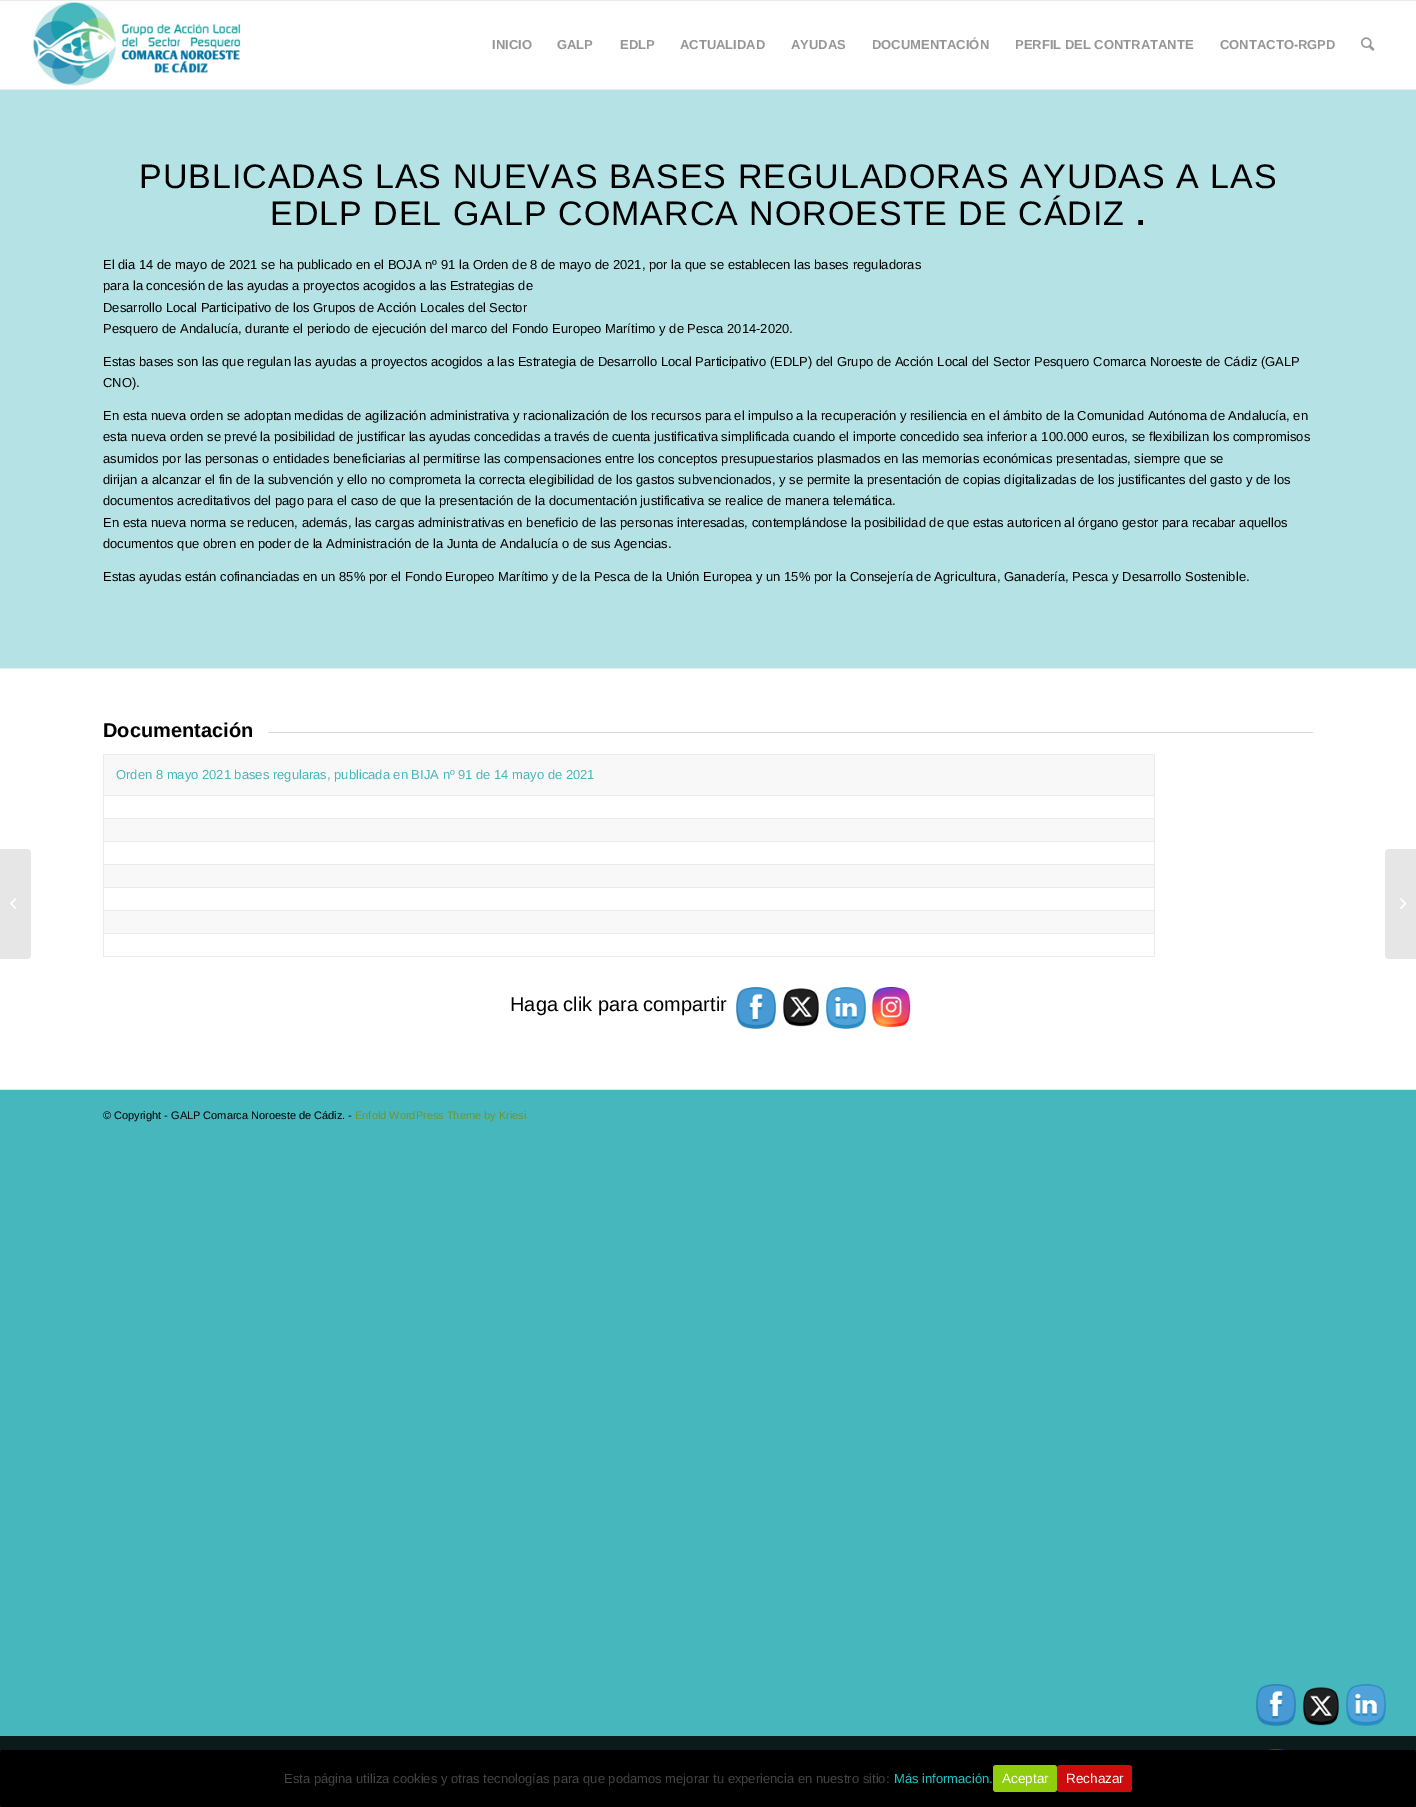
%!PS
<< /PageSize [1416 1807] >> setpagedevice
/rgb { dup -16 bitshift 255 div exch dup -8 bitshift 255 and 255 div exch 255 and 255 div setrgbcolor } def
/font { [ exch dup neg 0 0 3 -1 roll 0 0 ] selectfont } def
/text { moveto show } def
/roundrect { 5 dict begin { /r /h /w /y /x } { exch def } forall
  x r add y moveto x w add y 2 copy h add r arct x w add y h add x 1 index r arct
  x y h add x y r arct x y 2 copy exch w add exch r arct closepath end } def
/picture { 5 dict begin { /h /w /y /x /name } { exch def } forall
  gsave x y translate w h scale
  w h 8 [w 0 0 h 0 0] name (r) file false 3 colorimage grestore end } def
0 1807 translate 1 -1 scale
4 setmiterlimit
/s1 { /LiberationSans-Bold 13 font 16#969696 rgb } def
/s2 { /LiberationSans-Regular 13 font 16#000000 rgb } def
/s3 { /LiberationSans-Bold 20 font 16#000000 rgb } def
/s4 { /LiberationSans-Regular 13 font 16#46B7BD rgb } def
/s5 { /LiberationSans-Regular 20 font 16#000000 rgb } def
/s6 { /LiberationSans-Regular 11 font 16#000000 rgb } def
/s7 { /LiberationSans-Regular 11 font 16#719430 rgb } def
/s8 { /LiberationSans-Regular 13 font 16#444444 rgb } def
/s9 { /LiberationSans-Regular 13 font 16#1FC4C4 rgb } def
/s10 { /LiberationSans-Regular 13.5 font 16#FFFFFF rgb } def
16#46B7BD rgb
0 0 1416 1807 rectfill
16#FFFFFF rgb
0 669 1416 420 rectfill
0 1 1416 87 rectfill
16#EBEBEB rgb
0 0 1416 1 rectfill
0 89 1416 1 rectfill
(pic1.raw) 33 2 208 84 picture
s1
(INICIO) 492 49 text
(GALP) 557 49 text
(EDLP) 620 49 text
(ACTUALIDAD) 680 49 text
(AYUDAS) 791 49 text
(DOCUMENTACIÓN) 872 49 text
(PERFIL DEL CONTRATANTE) 1015 49 text
(CONTACTO-RGPD) 1220 49 text
(pic2.raw) 1361 37 14 14 picture
16#E6E6E6 rgb
0 849 moveto 27 849 lineto 29 849 31 851 31 853 curveto 31 955 lineto 31 957 29 959 27 959 curveto 0 959 lineto closepath fill
(pic3.raw) 10 898 7 11 picture
16#B5E2E5 rgb
0 90 1416 578 rectfill
16#FBFEFE rgb
0 88 1416 1 rectfill
/LiberationSans-Regular 34 font
16#000000 rgb
139 188 moveto 1 0 (PUBLICADAS LAS NUEVAS BASES REGULADORAS AYUDAS A LAS) ashow
270 225 moveto 1 0 (EDLP DEL GALP COMARCA NOROESTE DE CÁDIZ) ashow
/LiberationSans-Bold 34 font
1136 225 moveto 1 0 (.) ashow
s2
(El dia 14 de mayo de 2021 se ha publicado en el BOJA nº 91 la Orden de 8 de mayo de 2021, por la que se establecen las bases reguladoras) 103 269 text
(para la concesión de las ayudas a proyectos acogidos a las Estrategias de) 103 290 text
(Desarrollo Local Participativo de los Grupos de Acción Locales del Sector) 103 312 text
(Pesquero de Andalucía, durante el periodo de ejecución del marco del Fondo Europeo Marítimo y de Pesca 2014-2020.) 103 333 text
(Estas bases son las que regulan las ayudas a proyectos acogidos a las Estrategia de Desarrollo Local Participativo \(EDLP\) del Grupo de Acción Local del Sector Pesquero Comarca Noroeste de Cádiz \(GALP) 103 366 text
(CNO\).) 103 387 text
(En esta nueva orden se adoptan medidas de agilización administrativa y racionalización de los recursos para el impulso a la recuperación y resiliencia en el ámbito de la Comunidad Autónoma de Andalucía, en) 103 420 text
(esta nueva orden se prevé la posibilidad de justificar las ayudas concedidas a través de cuenta justificativa simplificada cuando el importe concedido sea inferior a 100.000 euros, se flexibilizan los compromisos) 103 441 text
(asumidos por las personas o entidades beneficiarias al permitirse las compensaciones entre los conceptos presupuestarios plasmados en las memorias económicas presentadas, siempre que se) 103 463 text
(dirijan a alcanzar el fin de la subvención y ello no comprometa la correcta elegibilidad de los gastos subvencionados, y se permite la presentación de copias digitalizadas de los justificantes del gasto y de los) 103 484 text
(documentos acreditativos del pago para el caso de que la presentación de la documentación justificativa se realice de manera telemática.) 103 505 text
(En esta nueva norma se reducen, además, las cargas administrativas en beneficio de las personas interesadas, contemplándose la posibilidad de que estas autoricen al órgano gestor para recabar aquellos) 103 527 text
(documentos que obren en poder de la Administración de la Junta de Andalucía o de sus Agencias.) 103 548 text
(Estas ayudas están cofinanciadas en un 85% por el Fondo Europeo Marítimo y de la Pesca de la Unión Europea y un 15% por la Consejería de Agricultura, Ganadería, Pesca y Desarrollo Sostenible.) 103 581 text
16#EBEBEB rgb
0 668 1416 1 rectfill
s3
(Documentación) 103 737 text
16#D9D9D9 rgb
268 732 1045 1 rectfill
16#F8F8F8 rgb
104 755 1050 178 rectfill
16#EBEBEB rgb
103 754 1052 1 rectfill
1154 795 1 162 rectfill
1154 754 1 42 rectfill
103 956 1052 1 rectfill
103 933 1 24 rectfill
103 933 1052 1 rectfill
103 910 1 24 rectfill
103 910 1052 1 rectfill
103 887 1 24 rectfill
103 887 1052 1 rectfill
103 864 1 24 rectfill
103 864 1052 1 rectfill
103 841 1 24 rectfill
103 841 1052 1 rectfill
103 818 1 24 rectfill
103 818 1052 1 rectfill
103 795 1 24 rectfill
103 795 1052 1 rectfill
103 754 1 42 rectfill
s4
(Orden 8 mayo 2021 bases regularas, publicada en BIJA nº 91 de 14 mayo de 2021) 116 779 text
16#FFFFFF rgb
104 796 1050 22 rectfill
104 842 1050 22 rectfill
104 888 1050 22 rectfill
s5
(Haga clik para compartir) 510 1011 text
(pic4.raw) 736 987 40 42 picture
(pic5.raw) 782 988 38 39 picture
(pic6.raw) 826 987 40 42 picture
(pic7.raw) 871 987 40 40 picture
16#EBEBEB rgb
0 1089 1416 1 rectfill
s6
(© Copyright - GALP Comarca Noroeste de Cádiz. -) 103 1119 text
s7
(Enfold WordPress Theme by Kriesi) 355 1119 text
16#E6E6E6 rgb
1389 849 moveto 1416 849 lineto 1416 959 lineto 1389 959 lineto 1387 959 1385 957 1385 955 curveto 1385 853 lineto 1385 851 1387 849 1389 849 curveto closepath fill
(pic8.raw) 1400 898 7 11 picture
(pic9.raw) 1256 1684 40 42 picture
(pic10.raw) 1302 1687 38 39 picture
(pic11.raw) 1346 1684 40 42 picture
16#0B1B1C rgb
0 1736 1416 71 rectfill
(pic12.raw) 1266 1749 20 1 picture
16#000000 rgb
0 1750 1416 57 3 roundrect fill
s8
(Esta página utiliza cookies y otras tecnologías para que podamos mejorar tu experiencia en nuestro sitio:) 284 1783 text
s9
(Más información.) 894 1783 text
16#90CD0D rgb
993 1765 64 27 3 roundrect fill
s10
(Aceptar) 1002 1783 text
16#CD0D0D rgb
1057 1765 75 27 3 roundrect fill
s10
(Rechazar) 1066 1783 text
showpage
